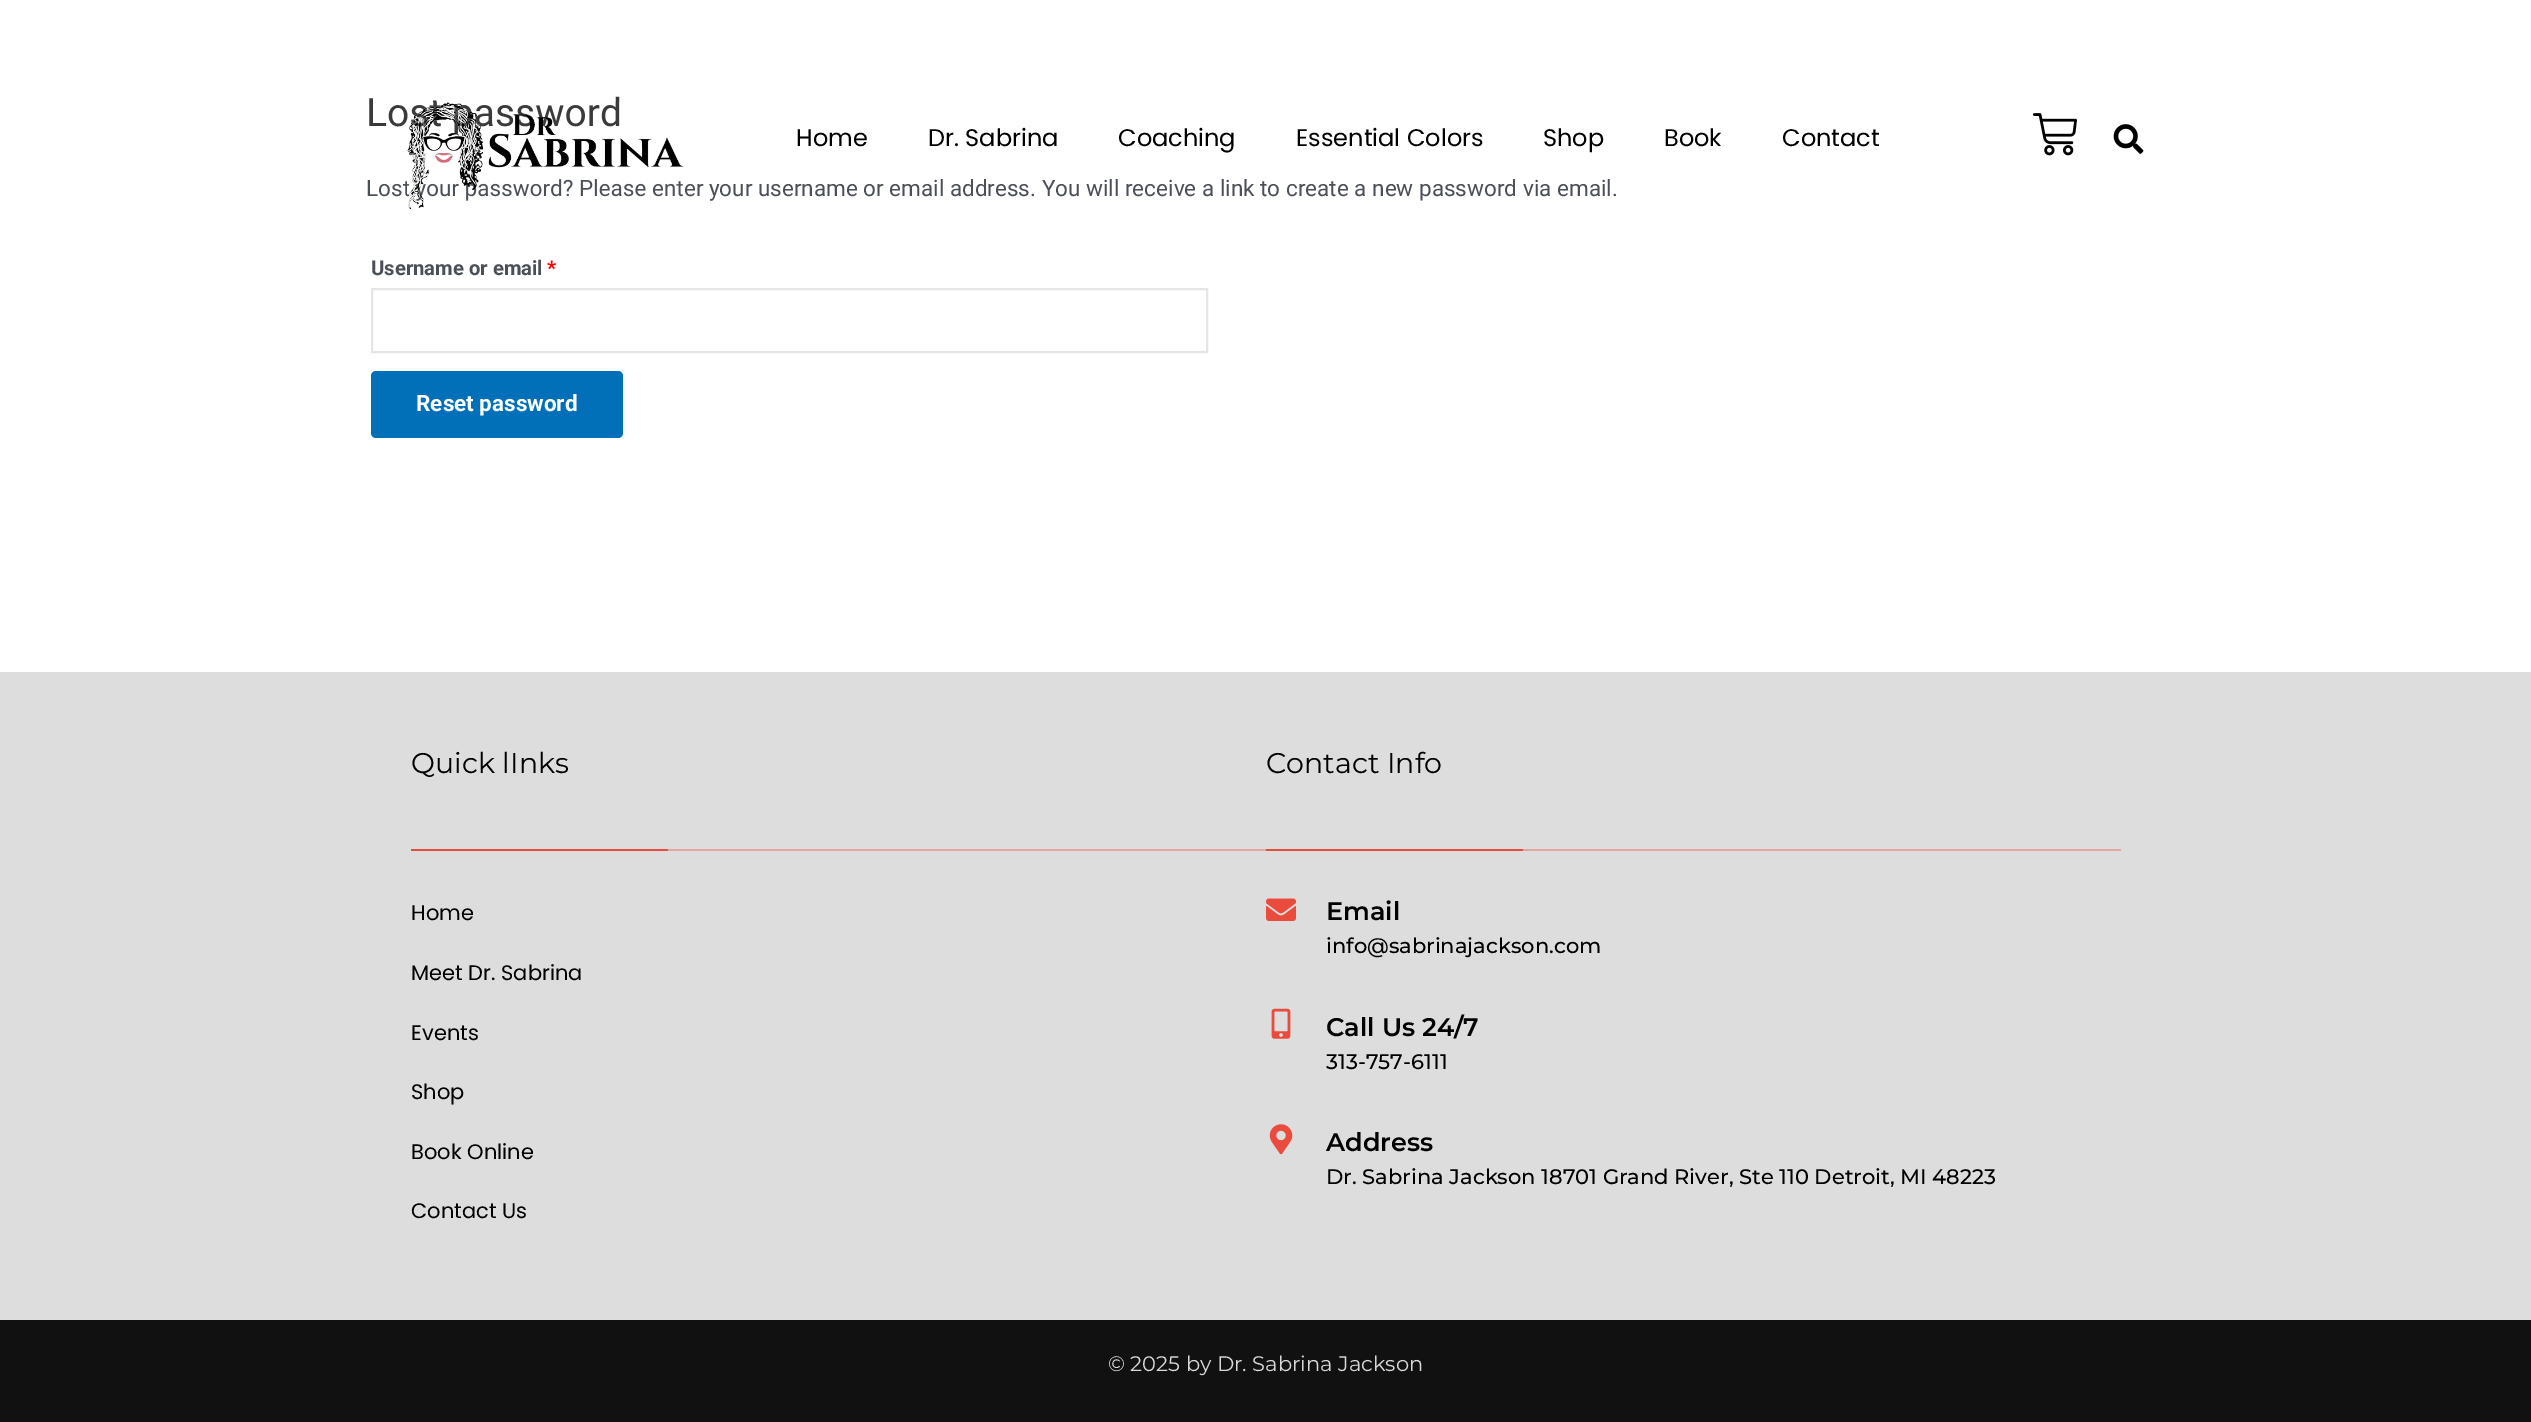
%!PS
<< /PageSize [2531 1422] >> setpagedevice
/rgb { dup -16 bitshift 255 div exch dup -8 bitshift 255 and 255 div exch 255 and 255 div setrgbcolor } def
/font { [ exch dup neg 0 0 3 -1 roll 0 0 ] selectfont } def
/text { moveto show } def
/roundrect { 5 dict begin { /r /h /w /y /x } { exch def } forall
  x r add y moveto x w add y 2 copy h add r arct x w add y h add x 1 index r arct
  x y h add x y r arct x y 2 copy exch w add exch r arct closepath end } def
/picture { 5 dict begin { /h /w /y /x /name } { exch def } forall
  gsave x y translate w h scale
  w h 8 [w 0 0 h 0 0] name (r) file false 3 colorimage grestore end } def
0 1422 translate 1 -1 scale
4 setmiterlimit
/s1 { /Roboto-Regular 39 font 16#3A3A3A rgb } def
/s2 { /Roboto-Regular 22.5 font 16#4B4F58 rgb } def
/s3 { /Roboto-Bold 20.25 font 16#4B4F58 rgb } def
/s4 { /Roboto-Bold 20.25 font 16#FF0000 rgb } def
/s5 { /Roboto-Bold 22.5 font 16#FFFFFF rgb } def
/s6 { /Poppins-Regular 24 font 16#000000 rgb } def
/s7 { /Montserrat-Regular 28.5 font 16#000000 rgb } def
/s8 { /Poppins-Regular 21 font 16#000000 rgb } def
/s9 { /Montserrat-SemiBold 25.5 font 16#000000 rgb } def
/s10 { /Montserrat-Medium 21 font 16#000000 rgb } def
/s11 { /Montserrat-Regular 21 font 16#D9D9D9 rgb } def
16#FFFFFF rgb
0 0 2531 1422 rectfill
s1
(Lost password) 366 126 text
s2
(Lost your password? Please enter your username or email address. You will receive a link to create a new password via email.) 366 196 text
s3
(Username or email) 371 275 text
s4
(*) 547 275 text
16#E5E5E5 rgb
2 setlinewidth
372 289 835 63 rectstroke
16#0170B9 rgb
371 371 252 67 5 roundrect fill
s5
(Reset password) 416 411 text
(pic1.raw) 407 102 277 108 picture
s6
(Home) 796 146 text
(Dr. Sabrina) 928 146 text
(Coaching) 1118 146 text
(Essential Colors) 1296 146 text
(Shop) 1543 146 text
(Book) 1664 146 text
(Contact) 1782 146 text
(pic2.raw) 2033 113 44 43 picture
(pic3.raw) 2113 124 31 30 picture
16#DDDDDD rgb
0 672 2531 648 rectfill
s7
(Quick lInks) 411 773 text
16#E2A6A0 rgb
668 849 598 2 rectfill
16#E94C3D rgb
411 849 257 2 rectfill
s8
(Home) 411 920 text
(Meet Dr. Sabrina) 411 980 text
(Events) 411 1040 text
(Shop) 411 1099 text
(Book Online) 411 1159 text
(Contact Us) 411 1218 text
s7
(Contact Info) 1266 773 text
16#E2A6A0 rgb
1523 849 598 2 rectfill
16#E94C3D rgb
1266 849 257 2 rectfill
(pic4.raw) 1266 898 30 23 picture
s9
(Email) 1326 920 text
s10
(info@sabrinajackson.com) 1326 953 text
(pic5.raw) 1271 1008 20 31 picture
s9
(Call Us 24/7) 1326 1036 text
s10
(313-757-6111) 1326 1069 text
(pic6.raw) 1269 1124 24 31 picture
s9
(Address) 1326 1151 text
s10
(Dr. Sabrina Jackson 18701 Grand River, Ste 110 Detroit, MI 48223) 1326 1184 text
16#111111 rgb
0 1320 2531 102 rectfill
s11
(© 2025 by Dr. Sabrina Jackson) 1108 1371 text
showpage
